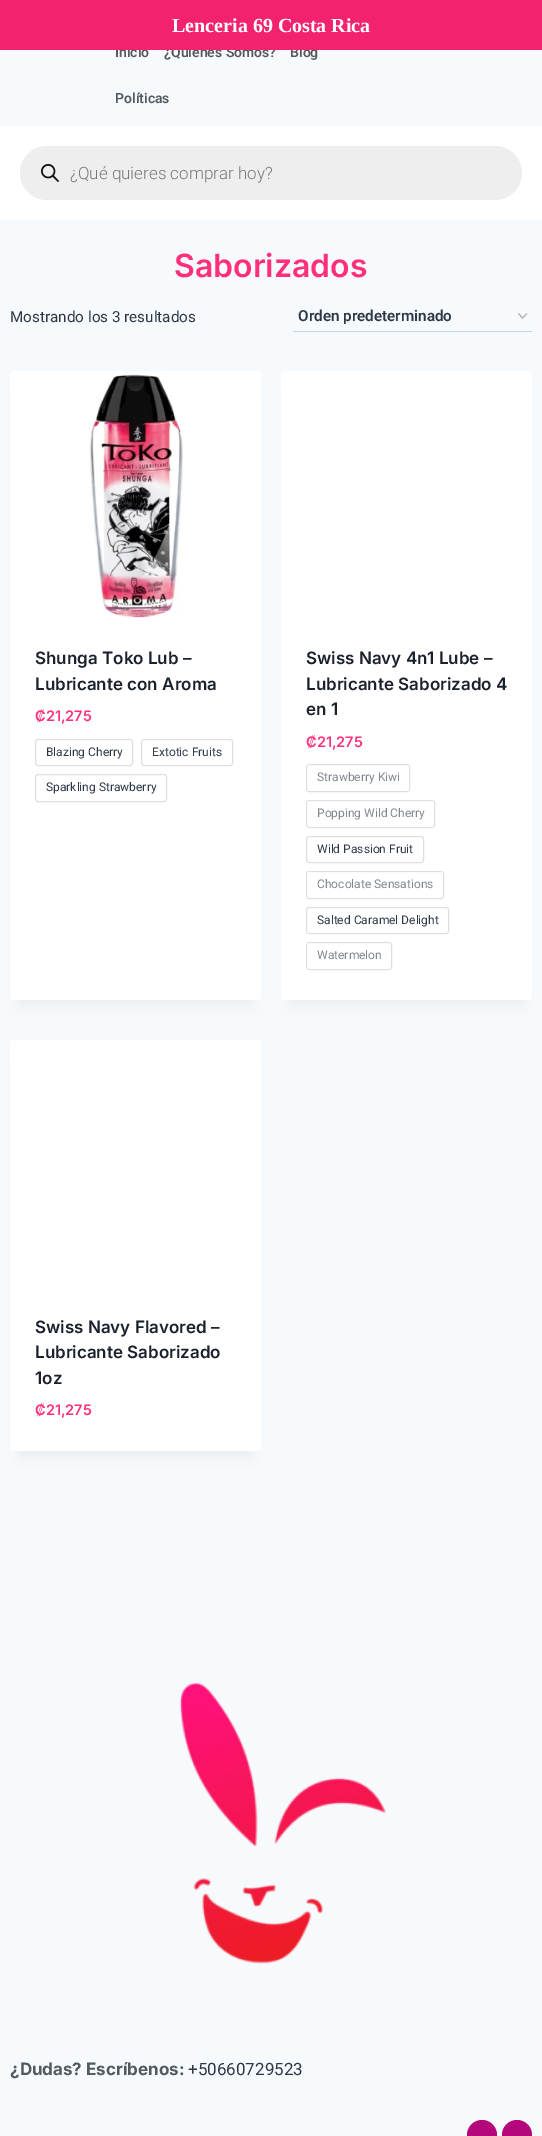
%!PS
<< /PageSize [542 2136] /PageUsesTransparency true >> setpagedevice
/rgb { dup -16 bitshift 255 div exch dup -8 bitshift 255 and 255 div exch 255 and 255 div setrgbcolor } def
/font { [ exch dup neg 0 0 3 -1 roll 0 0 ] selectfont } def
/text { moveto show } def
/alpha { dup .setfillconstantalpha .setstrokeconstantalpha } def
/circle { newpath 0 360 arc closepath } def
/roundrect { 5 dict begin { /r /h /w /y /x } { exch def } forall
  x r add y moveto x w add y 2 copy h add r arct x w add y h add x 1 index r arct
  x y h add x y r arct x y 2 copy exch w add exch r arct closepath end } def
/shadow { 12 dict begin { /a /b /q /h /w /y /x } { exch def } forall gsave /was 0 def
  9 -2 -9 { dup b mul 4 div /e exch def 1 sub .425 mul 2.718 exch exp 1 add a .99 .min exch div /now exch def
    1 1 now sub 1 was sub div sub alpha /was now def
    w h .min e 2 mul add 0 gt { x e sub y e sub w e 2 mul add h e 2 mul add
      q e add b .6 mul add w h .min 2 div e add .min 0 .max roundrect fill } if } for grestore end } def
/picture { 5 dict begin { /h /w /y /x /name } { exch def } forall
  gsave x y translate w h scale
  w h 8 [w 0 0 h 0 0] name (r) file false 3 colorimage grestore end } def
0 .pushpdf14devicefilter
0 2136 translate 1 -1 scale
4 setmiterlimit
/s1 { /Roboto-SemiBold 14 font 16#54595F rgb } def
/s2 { /LiberationSerif-Bold 20 font 16#FFFFFF rgb } def
/s3 { /Roboto-Light 17 font 16#777777 rgb } def
/s4 { /Inter-SemiBold 32 font 16#FE2F7B rgb } def
/s5 { /Roboto-Regular 15.25 font 16#2D3748 rgb } def
/s6 { /Roboto-SemiBold 15.25 font 16#2D3748 rgb } def
/s7 { /Inter-SemiBold 17 font 16#1A202C rgb } def
/s8 { /Inter-SemiBold 14.5 font 16#FE2F7B rgb } def
/s9 { /Roboto-Regular 12 font 16#2D3748 rgb } def
/s10 { /Inter-Bold 17 font 16#54595F rgb } def
/s11 { /Roboto-Regular 17 font 16#2D3748 rgb } def
16#F7FAFC rgb
0 0 542 2136 rectfill
s1
(Inicio) 115 57 text
(¿Quiénes Somos?) 164 57 text
(Blog) 290 57 text
16#F3226E rgb
0 0 542 50 rectfill
s2
(Lenceria 69 Costa Rica) 172 32 text
s1
(Políticas) 115 103 text
16#FFFFFF rgb
0 126 542 94 rectfill
16#EEEEEE rgb
20 146 502 54 27 roundrect fill
(pic1.raw) 41 164 18 18 picture
s3
(¿Qué quieres comprar hoy?) 70 179 text
s4
(Saborizados) 174 277 text
s5
(Mostrando los 3 resultados) 10 322 text
16#BBBBBB rgb
1.4 setlinewidth
518.5 313.5 moveto 522.5 318 lineto 527 313.5 lineto stroke
16#CBD5E0 rgb
293 331 239 1 rectfill
s6
(Orden predeterminado) 298 321 text
16#000000 rgb
20 396 231 609 0 7.5 0.05 shadow
16#FFFFFF rgb
10 371 251 629 4 roundrect fill
(pic2.raw) 89 374 95 244 picture
s7
(Shunga Toko Lub –) 35 664 text
(Lubricante con Aroma) 35 690 text
s8
(₡21,275) 35 721 text
16#DFDFDF rgb
1 setlinewidth
35.5 739.5 97 26 2.5 roundrect stroke
s9
(Blazing Cherry) 46 756 text
16#DFDFDF rgb
141.5 739.5 91 26 2.5 roundrect stroke
s9
(Extotic Fruits) 152 756 text
16#DFDFDF rgb
35.5 774.5 131 27 2.5 roundrect stroke
s9
(Sparkling Strawberry) 46 791 text
16#000000 rgb
291 396 231 609 0 7.5 0.05 shadow
16#FFFFFF rgb
281 371 251 629 4 roundrect fill
s7
(Swiss Navy 4n1 Lube –) 306 664 text
(Lubricante Saborizado 4) 306 690 text
(en 1) 306 715 text
s8
(₡21,275) 306 747 text
16#DFDFDF rgb
306.5 764.5 103 27 2.5 roundrect stroke
s9
(Strawberry Kiwi) 317 781 text
0.4 alpha
16#FFFFFF rgb
307 765 102 26 rectfill
1 alpha
16#DFDFDF rgb
306.5 800.5 128 27 2.5 roundrect stroke
s9
(Popping Wild Cherry) 317 817 text
0.4 alpha
16#FFFFFF rgb
307 801 127 26 rectfill
1 alpha
16#DFDFDF rgb
306.5 836.5 117 26 2.5 roundrect stroke
s9
(Wild Passion Fruit) 317 853 text
16#DFDFDF rgb
306.5 871.5 137 27 2.5 roundrect stroke
s9
(Chocolate Sensations) 317 888 text
0.4 alpha
16#FFFFFF rgb
307 872 136 26 rectfill
1 alpha
16#DFDFDF rgb
306.5 907.5 142 26 2.5 roundrect stroke
s9
(Salted Caramel Delight) 317 924 text
16#DFDFDF rgb
306.5 942.5 85 27 2.5 roundrect stroke
s9
(Watermelon) 317 959 text
0.4 alpha
16#FFFFFF rgb
307 943 84 26 rectfill
1 alpha
16#000000 rgb
20 1065 231 391 0 7.5 0.05 shadow
16#FFFFFF rgb
10 1040 251 411 4 roundrect fill
s7
(Swiss Navy Flavored –) 35 1333 text
(Lubricante Saborizado) 35 1358 text
(1oz) 35 1384 text
s8
(₡21,275) 35 1415 text
(pic3.raw) 179 1682 207 282 picture
s10
(¿Dudas? Escríbenos:) 10 2075 text
s11
(+50660729523) 188 2075 text
16#B3077B rgb
482 2135 15 circle fill
517 2135 15 circle fill
.poppdf14devicefilter showpage
